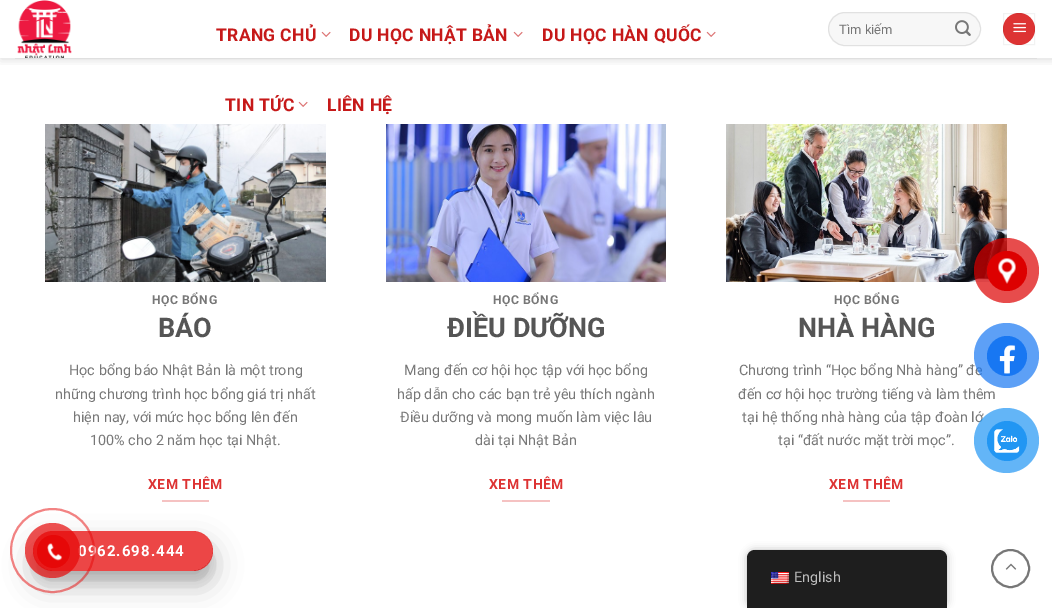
%!PS
<< /PageSize [1052 608] /PageUsesTransparency true >> setpagedevice
/rgb { dup -16 bitshift 255 div exch dup -8 bitshift 255 and 255 div exch 255 and 255 div setrgbcolor } def
/font { [ exch dup neg 0 0 3 -1 roll 0 0 ] selectfont } def
/text { moveto show } def
/alpha { dup .setfillconstantalpha .setstrokeconstantalpha } def
/circle { newpath 0 360 arc closepath } def
/roundrect { 5 dict begin { /r /h /w /y /x } { exch def } forall
  x r add y moveto x w add y 2 copy h add r arct x w add y h add x 1 index r arct
  x y h add x y r arct x y 2 copy exch w add exch r arct closepath end } def
/shadow { 12 dict begin { /a /b /q /h /w /y /x } { exch def } forall gsave /was 0 def
  9 -2 -9 { dup b mul 4 div /e exch def 1 sub .425 mul 2.718 exch exp 1 add a .99 .min exch div /now exch def
    1 1 now sub 1 was sub div sub alpha /was now def
    w h .min e 2 mul add 0 gt { x e sub y e sub w e 2 mul add h e 2 mul add
      q e add b .6 mul add w h .min 2 div e add .min 0 .max roundrect fill } if } for grestore end } def
/picture { 5 dict begin { /h /w /y /x /name } { exch def } forall
  gsave x y translate w h scale
  w h 8 [w 0 0 h 0 0] name (r) file false 3 colorimage grestore end } def
0 .pushpdf14devicefilter
0 608 translate 1 -1 scale
4 setmiterlimit
/s1 { /Roboto-Regular 13 font 16#777777 rgb } def
/s2 { /Roboto-Bold 27 font 16#555555 rgb } def
/s3 { /Roboto-Regular 14.4 font 16#777777 rgb } def
/s4 { /Roboto-Regular 14.4 font 16#BDBDBD rgb } def
16#FFFFFF rgb
0 0 1052 608 rectfill
gsave
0 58 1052 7 rectclip
16#000000 rgb
1 1 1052 58 0 5 0.15 shadow
grestore
(pic1.raw) 17 0 55 58 picture
/Roboto-Bold 17.5 font
16#C61919 rgb
216 41 moveto 0.3 0 (TRANG CHỦ) ashow
(pic2.raw) 321 31 10 6 picture
349 41 moveto 0.3 0 (DU HỌC NHẬT BẢN) ashow
(pic2.raw) 513 31 10 6 picture
542 41 moveto 0.3 0 (DU HỌC HÀN QUỐC) ashow
(pic2.raw) 706 31 10 6 picture
225 111 moveto 0.3 0 (TIN TỨC) ashow
(pic2.raw) 298 101 10 6 picture
327 111 moveto 0.3 0 (LIÊN HỆ) ashow
16#F7F7F7 rgb
828 12 153 34 17 roundrect fill
0.09 alpha
16#000000 rgb
828.5 12.5 152 33 16.5 roundrect stroke
1 alpha
s1
(Tìm kiếm) 839 34 text
(pic3.raw) 955 20 16 16 picture
16#DD3333 rgb
1019 29 16 circle fill
0.05 alpha
16#000000 rgb
1003.5 13.5 31 31 rectstroke
1 alpha
(pic4.raw) 1013 23 13 10 picture
16#DFDFDF rgb
15 58 1022 1 rectfill
(pic5.raw) 45 124 281 158 picture
/Roboto-Bold 12.25 font
16#777777 rgb
152 304 moveto 0.5 0 (HỌC BỔNG) ashow
s2
(BÁO) 158 337 text
s3
(Học bổng báo Nhật Bản là một trong) 69 375 text
(những chương trình học bổng giá trị nhất) 55 399 text
(hiện nay, với mức học bổng lên đến) 73 422 text
(100% cho 2 năm học tại Nhật.) 90 445 text
/Roboto-Bold 14 font
16#DD3333 rgb
148 489 moveto 0.5 0 (XEM THÊM) ashow
16#F5C2C2 rgb
162 500 47 2 rectfill
(pic6.raw) 386 124 280 158 picture
/Roboto-Bold 12.25 font
16#777777 rgb
493 304 moveto 0.5 0 (HỌC BỔNG) ashow
s2
(ĐIỀU DƯỠNG) 447 337 text
s3
(Mang đến cơ hội học tập với học bổng) 404 375 text
(hấp dẫn cho các bạn trẻ yêu thích ngành) 397 399 text
(Điều dưỡng và mong muốn làm việc lâu) 400 422 text
(dài tại Nhật Bản) 475 445 text
/Roboto-Bold 14 font
16#DD3333 rgb
489 489 moveto 0.5 0 (XEM THÊM) ashow
16#F5C2C2 rgb
502 500 48 2 rectfill
(pic7.raw) 726 124 281 158 picture
/Roboto-Bold 12.25 font
16#777777 rgb
834 304 moveto 0.5 0 (HỌC BỔNG) ashow
s2
(NHÀ HÀNG) 798 337 text
s3
(Chương trình “Học bổng Nhà hàng” đe) 739 375 text
(đến cơ hội học trường tiếng và làm thêm) 738 399 text
(tại hệ thống nhà hàng của tập đoàn lớ) 742 422 text
(tại “đất nước mặt trời mọc”.) 778 445 text
/Roboto-Bold 14 font
16#DD3333 rgb
829 489 moveto 0.5 0 (XEM THÊM) ashow
16#F5C2C2 rgb
843 500 47 2 rectfill
gsave
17 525 moveto 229 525 lineto 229 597 lineto 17 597 lineto closepath 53 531 moveto 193 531 lineto 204 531 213 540 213 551 curveto 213 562 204 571 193 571 curveto 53 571 lineto 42 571 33 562 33 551 curveto 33 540 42 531 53 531 curveto closepath eoclip newpath
16#000000 rgb
33 541 180 40 20 5 0.1 shadow
grestore
gsave
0 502 moveto 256 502 lineto 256 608 lineto 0 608 lineto closepath 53 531 moveto 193 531 lineto 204 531 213 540 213 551 curveto 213 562 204 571 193 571 curveto 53 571 lineto 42 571 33 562 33 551 curveto 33 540 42 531 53 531 curveto closepath eoclip newpath
16#000000 rgb
33 545 180 40 20 14 0.25 shadow
grestore
0.75 alpha
16#E60808 rgb
33 531 180 40 20 roundrect fill
/Roboto-Bold 15 font
1 alpha
16#FFFFFF rgb
78 556 moveto 1 0 (0962.698.444) ashow
0.5 alpha
16#E60808 rgb
2 setlinewidth
52.5 550.5 41.5 circle stroke
0.7 alpha
52.5 550.5 27.5 circle fill
1 alpha
53.5 551.5 16.5 circle fill
(pic8.raw) 47 543 16 18 picture
16#777777 rgb
1010.5 568.5 18.5 circle stroke
(pic9.raw) 1005 563 12 7 picture
0.7 alpha
16#DD0000 rgb
1006.5 270.5 32.5 circle fill
1 alpha
1007 271 20 circle fill
(pic10.raw) 998 258 18 26 picture
0.7 alpha
16#1877F2 rgb
1006.5 355.5 32.5 circle fill
1 alpha
1007 356 20 circle fill
(pic11.raw) 999 345 17 29 picture
0.7 alpha
16#2196F3 rgb
1006.5 440.5 32.5 circle fill
1 alpha
1007 441 20 circle fill
(pic12.raw) 994 429 26 24 picture
16#000000 rgb
747 550 200 58 8 4 0.25 shadow
16#1E1E1E rgb
755 550 moveto 939 550 lineto 943.5 550 947 553.5 947 558 curveto 947 608 lineto 747 608 lineto 747 558 lineto 747 553.5 750.5 550 755 550 curveto closepath fill
(pic13.raw) 771 572 18 12 picture
s4
(English) 794 582 text
.poppdf14devicefilter showpage
